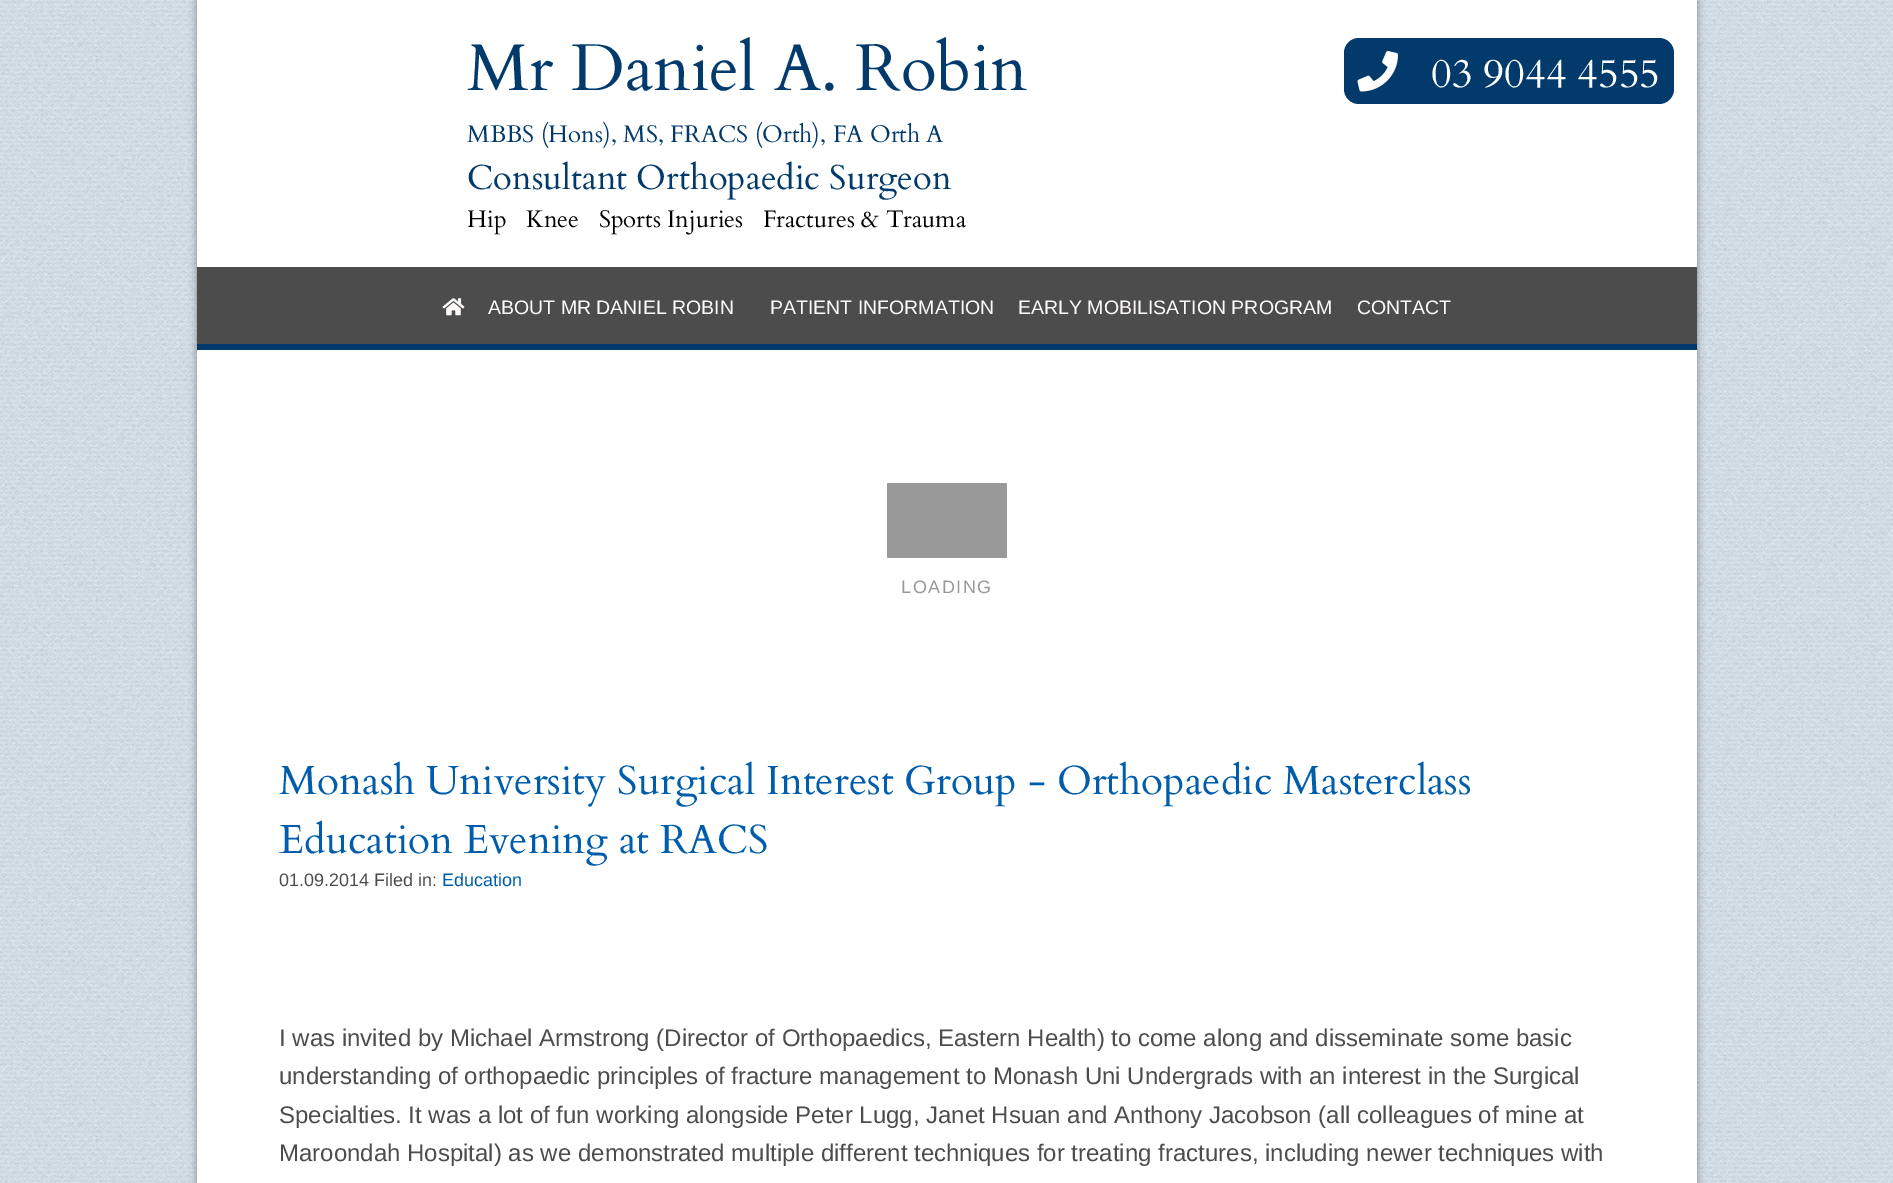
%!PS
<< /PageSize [1893 1183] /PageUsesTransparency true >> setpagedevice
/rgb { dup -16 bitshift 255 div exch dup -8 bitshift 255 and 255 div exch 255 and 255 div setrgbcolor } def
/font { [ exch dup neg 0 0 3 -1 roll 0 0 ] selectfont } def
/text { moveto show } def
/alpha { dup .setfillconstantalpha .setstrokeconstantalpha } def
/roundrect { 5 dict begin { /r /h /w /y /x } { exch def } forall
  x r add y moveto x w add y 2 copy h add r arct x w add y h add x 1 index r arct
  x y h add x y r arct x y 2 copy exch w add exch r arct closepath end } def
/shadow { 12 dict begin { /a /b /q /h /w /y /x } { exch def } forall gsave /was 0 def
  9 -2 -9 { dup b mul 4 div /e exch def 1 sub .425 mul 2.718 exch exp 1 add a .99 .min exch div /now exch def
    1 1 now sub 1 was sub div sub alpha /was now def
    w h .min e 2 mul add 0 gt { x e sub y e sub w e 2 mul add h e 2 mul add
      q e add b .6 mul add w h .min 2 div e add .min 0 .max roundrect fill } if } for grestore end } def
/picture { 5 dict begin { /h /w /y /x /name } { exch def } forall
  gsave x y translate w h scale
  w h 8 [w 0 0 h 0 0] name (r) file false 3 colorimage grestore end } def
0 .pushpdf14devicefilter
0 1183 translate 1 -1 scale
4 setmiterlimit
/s1 { /Cardo-Regular 66 font 16#023A6C rgb } def
/s2 { /Cardo-Regular 24 font 16#023A6C rgb } def
/s3 { /Cardo-Regular 34.5 font 16#023A6C rgb } def
/s4 { /Cardo-Regular 24 font 16#000000 rgb } def
/s5 { /Cardo-Regular 40.5 font 16#FFFFFF rgb } def
/s6 { /LiberationSans-Regular 19.5 font 16#FCFAF9 rgb } def
/s7 { /Cardo-Regular 40.5 font 16#005DAB rgb } def
/s8 { /LiberationSans-Regular 18 font 16#4C4C4C rgb } def
/s9 { /LiberationSans-Regular 18 font 16#005DAB rgb } def
/s10 { /LiberationSans-Regular 24 font 16#4C4C4C rgb } def
16#FFFFFF rgb
0 0 1893 1183 rectfill
(pic1.raw) 0 0 1893 1183 picture
16#000000 rgb
197 0 1500 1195 0 4 0.4 shadow
16#FFFFFF rgb
197 0 1500 1183 rectfill
s1
(Mr Daniel A. Robin) 467 90 text
s2
(MBBS \(Hons\), MS, FRACS \(Orth\), FA Orth A) 467 142 text
s3
(Consultant Orthopaedic Surgeon) 467 189 text
s4
(Hip   Knee   Sports Injuries   Fractures & Trauma) 467 227 text
16#023A6C rgb
1344 38 330 66 15 roundrect fill
(pic2.raw) 1357 51 41 41 picture
s5
(03 9044 4555) 1431 87 text
16#4C4C4C rgb
197 267 1500 77 rectfill
16#023A6C rgb
197 344 1500 6 rectfill
(pic3.raw) 442 298 23 18 picture
s6
(ABOUT MR DANIEL ROBIN) 488 314 text
(PATIENT INFORMATION) 770 314 text
(EARLY MOBILISATION PROGRAM) 1018 314 text
(CONTACT) 1357 314 text
16#999999 rgb
887 483 120 75 1.5 roundrect fill
/LiberationSans-Regular 18 font
901 593 moveto 1.5 0 (LOADING) ashow
s7
(Monash University Surgical Interest Group - Orthopaedic Masterclass) 279 794 text
(Education Evening at RACS) 279 853 text
s8
(01.09.2014 Filed in:) 279 886 text
s9
(Education) 442 886 text
s10
(I was invited by Michael Armstrong \(Director of Orthopaedics, Eastern Health\) to come along and disseminate some basic) 279 1046 text
(understanding of orthopaedic principles of fracture management to Monash Uni Undergrads with an interest in the Surgical) 279 1084 text
(Specialties. It was a lot of fun working alongside Peter Lugg, Janet Hsuan and Anthony Jacobson \(all colleagues of mine at) 279 1123 text
(Maroondah Hospital\) as we demonstrated multiple different techniques for treating fractures, including newer techniques with) 279 1161 text
.poppdf14devicefilter showpage
